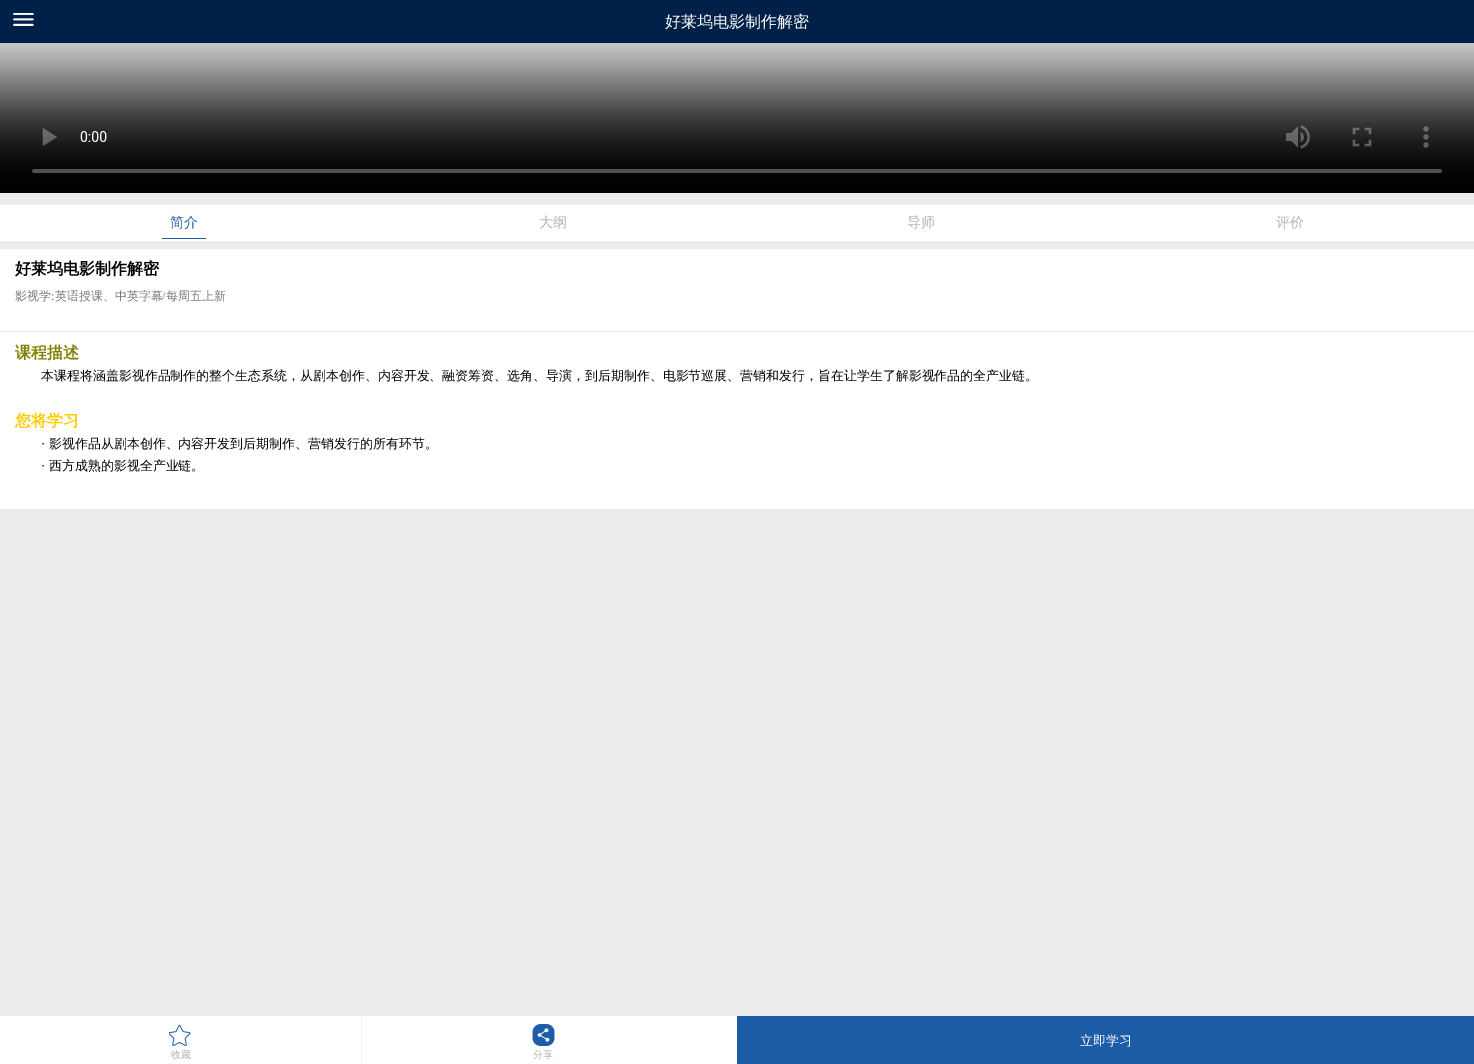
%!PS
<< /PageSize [1474 1064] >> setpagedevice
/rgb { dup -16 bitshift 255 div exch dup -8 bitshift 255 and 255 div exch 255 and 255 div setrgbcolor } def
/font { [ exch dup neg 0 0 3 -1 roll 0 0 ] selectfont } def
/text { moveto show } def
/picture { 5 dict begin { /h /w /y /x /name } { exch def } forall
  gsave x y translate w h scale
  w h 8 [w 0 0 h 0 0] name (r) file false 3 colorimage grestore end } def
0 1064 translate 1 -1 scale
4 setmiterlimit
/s1 { /WenQuanYiZenHei-Medium 16 font 16#FFFFFF rgb } def
/s2 { /WenQuanYiZenHei-Medium 14 font 16#1D5DA7 rgb } def
/s3 { /WenQuanYiZenHei-Medium 14 font 16#B4B4B4 rgb } def
/s4 { /WenQuanYiZenHei-Bold 16 font 16#000000 rgb } def
/s5 { /WenQuanYiZenHei-Medium 12 font 16#787878 rgb } def
/s6 { /LiberationSerif-Regular 12 font 16#787878 rgb } def
/s7 { /WenQuanYiZenHei-Bold 16 font 16#808000 rgb } def
/s8 { /WenQuanYiZenHei-Medium 12.95 font 16#000000 rgb } def
/s9 { /WenQuanYiZenHei-Bold 16 font 16#FFCC00 rgb } def
/s10 { /LiberationSerif-Regular 12.95 font 16#000000 rgb } def
/s11 { /WenQuanYiZenHei-Medium 13 font 16#FFFFFF rgb } def
/s12 { /WenQuanYiZenHei-Medium 10 font 16#B4B4B4 rgb } def
16#ECECEC rgb
0 0 1474 1064 rectfill
16#002147 rgb
0 0 1474 43 rectfill
(pic1.raw) 13 13 21 13 picture
s1
(好莱坞电影制作解密) 665 27 text
0 43 1474 142 rectfill
(pic2.raw) 0 43 1474 150 picture
0 205 1474 36 rectfill
s2
(简介) 170 227 text
162 238 44 1 rectfill
s3
(大纲) 539 227 text
(导师) 907 227 text
(评价) 1276 227 text
16#FFFFFF rgb
0 249 1474 82 rectfill
s4
(好莱坞电影制作解密) 15 274 text
s5
(影视学 英语授课、中英字幕) 15 300 text
s6
(/) 162 300 text
s5
(每周五上新) 166 300 text
s6
(:) 51 300 text
16#FFFFFF rgb
0 332 1474 177 rectfill
s7
(课程描述) 15 358 text
s8
(本课程将涵盖影视作品制作的整个生态系统，从剧本创作、内容开发、融资筹资、选角、导演，到后期制作、电影节巡展、营销和发行，旨在让学生了解影视作品的全产业链。) 41 380 text
s9
(您将学习) 15 426 text
s10
(·) 41 448 text
s8
(影视作品从剧本创作、内容开发到后期制作、营销发行的所有环节。) 49 448 text
s10
(·) 41 470 text
s8
(西方成熟的影视全产业链。) 49 470 text
16#FFFFFF rgb
0 1016 737 48 rectfill
16#1D5DA7 rgb
737 1016 737 48 rectfill
s11
(立即学习) 1080 1045 text
16#EEEEEE rgb
361 1016 1 48 rectfill
(pic3.raw) 169 1025 22 21 picture
s12
(收藏) 171 1058 text
(pic4.raw) 532 1024 23 22 picture
(分享) 533 1058 text
showpage
